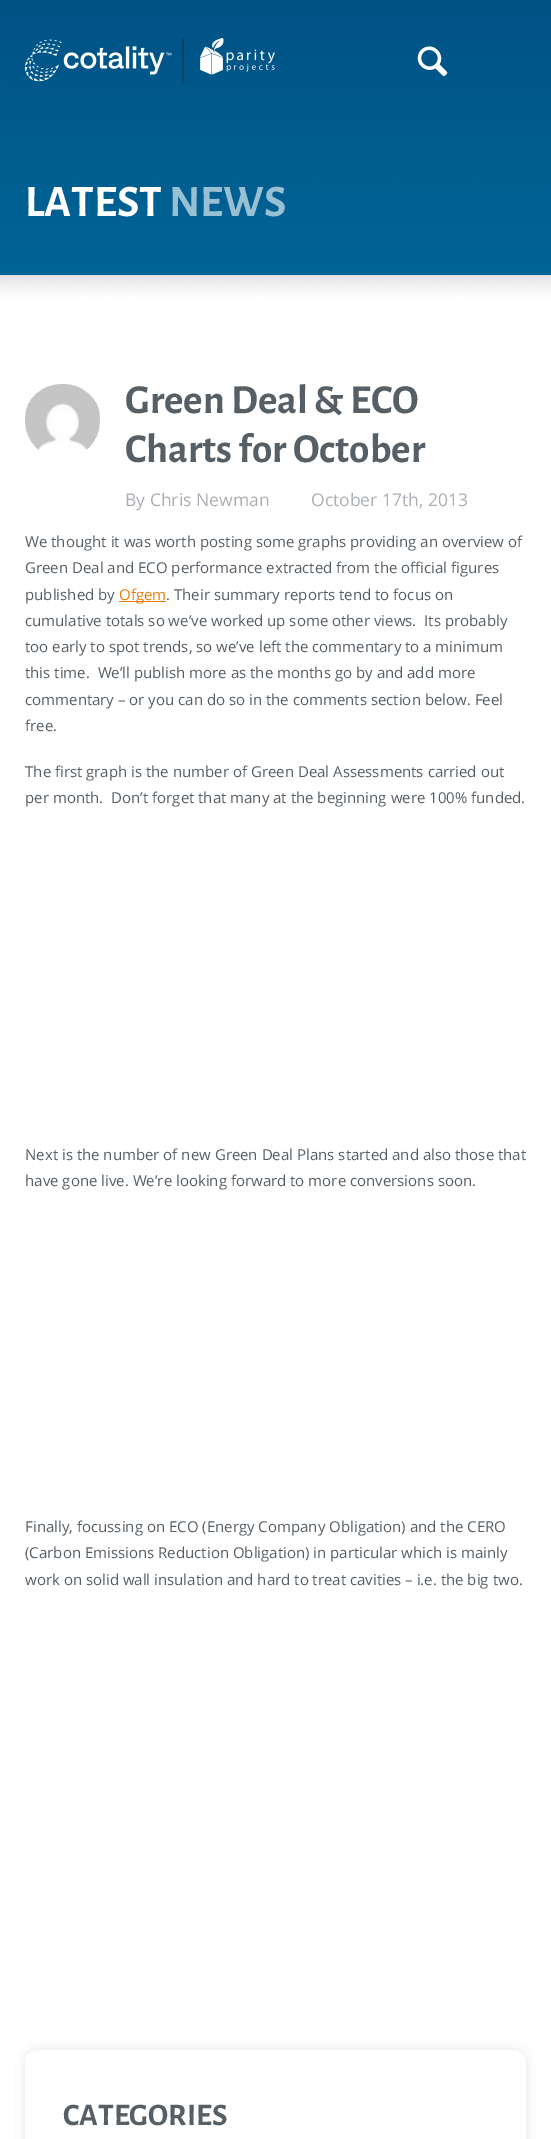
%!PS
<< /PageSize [551 2139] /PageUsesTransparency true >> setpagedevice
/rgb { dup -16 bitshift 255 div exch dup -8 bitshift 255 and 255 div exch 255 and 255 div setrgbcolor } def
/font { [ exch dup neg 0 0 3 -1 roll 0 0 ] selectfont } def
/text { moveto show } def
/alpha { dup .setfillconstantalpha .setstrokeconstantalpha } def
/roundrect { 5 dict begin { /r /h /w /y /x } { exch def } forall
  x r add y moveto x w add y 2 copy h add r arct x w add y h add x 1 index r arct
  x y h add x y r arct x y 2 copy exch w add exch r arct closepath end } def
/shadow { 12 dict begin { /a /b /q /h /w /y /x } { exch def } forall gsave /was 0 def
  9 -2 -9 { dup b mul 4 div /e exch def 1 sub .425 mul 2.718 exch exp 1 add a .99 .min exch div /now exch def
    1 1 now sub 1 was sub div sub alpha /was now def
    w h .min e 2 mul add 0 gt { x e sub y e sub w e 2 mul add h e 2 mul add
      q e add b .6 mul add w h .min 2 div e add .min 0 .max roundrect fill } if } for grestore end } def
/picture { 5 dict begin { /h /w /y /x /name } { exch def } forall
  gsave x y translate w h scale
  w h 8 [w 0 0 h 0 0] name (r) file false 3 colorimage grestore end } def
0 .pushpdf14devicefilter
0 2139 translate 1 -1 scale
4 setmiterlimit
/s1 { /AlegreyaSans-Bold 45 font 16#FFFFFF rgb } def
/s2 { /AlegreyaSans-Bold 45 font 16#99BFD3 rgb } def
/s3 { /AlegreyaSans-Bold 41.25 font 16#575F66 rgb } def
/s4 { /OpenSans-Regular 17.5 font 16#ABAFB3 rgb } def
/s5 { /OpenSans-Regular 15 font 16#575F66 rgb } def
/s6 { /OpenSans-Regular 15 font 16#EB7B07 rgb } def
/s7 { /AlegreyaSans-Bold 31.25 font 16#575F66 rgb } def
16#FFFFFF rgb
0 0 551 2139 rectfill
(pic3.raw) 0 0 551 275 picture
(pic1.raw) 25 38 250 46 picture
(pic2.raw) 417 46 31 30 picture
s1
(LATEST) 25 216 text
s2
(NEWS) 169 216 text
(pic4.raw) 0 275 551 22 picture
(pic5.raw) 25 384 75 66 picture
s3
(Green Deal & ECO) 125 413 text
(Charts for October) 125 462 text
s4
(By Chris Newman) 125 506 text
(October 17th, 2013) 311 506 text
s5
(We thought it was worth posting some graphs providing an overview of) 25 547 text
(Green Deal and ECO performance extracted from the official figures) 25 573 text
(published by) 25 600 text
16#EB7B07 rgb
119 601 47 1 rectfill
(Ofgem) 119 600 text
s5
(. Their summary reports tend to focus on) 166 600 text
(cumulative totals so we’ve worked up some other views.  Its probably) 25 626 text
(too early to spot trends, so we’ve left the commentary to a minimum) 25 652 text
(this time.  We’ll publish more as the months go by and add more) 25 678 text
(commentary – or you can do so in the comments section below. Feel) 25 705 text
(free.) 25 731 text
(The first graph is the number of Green Deal Assessments carried out) 25 777 text
(per month.  Don’t forget that many at the beginning were 100% funded.) 25 803 text
(Next is the number of new Green Deal Plans started and also those that) 25 1160 text
(have gone live. We’re looking forward to more conversions soon.) 25 1186 text
(Finally, focussing on ECO \(Energy Company Obligation\) and the CERO) 25 1532 text
(\(Carbon Emissions Reduction Obligation\) in particular which is mainly) 25 1558 text
(work on solid wall insulation and hard to treat cavities – i.e. the big two.) 25 1585 text
16#000000 rgb
25 2050 501 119 13 5.5 0.1 shadow
16#FFFFFF rgb
25 2050 501 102 13 roundrect fill
s7
(CATEGORIES) 63 2125 text
.poppdf14devicefilter showpage
